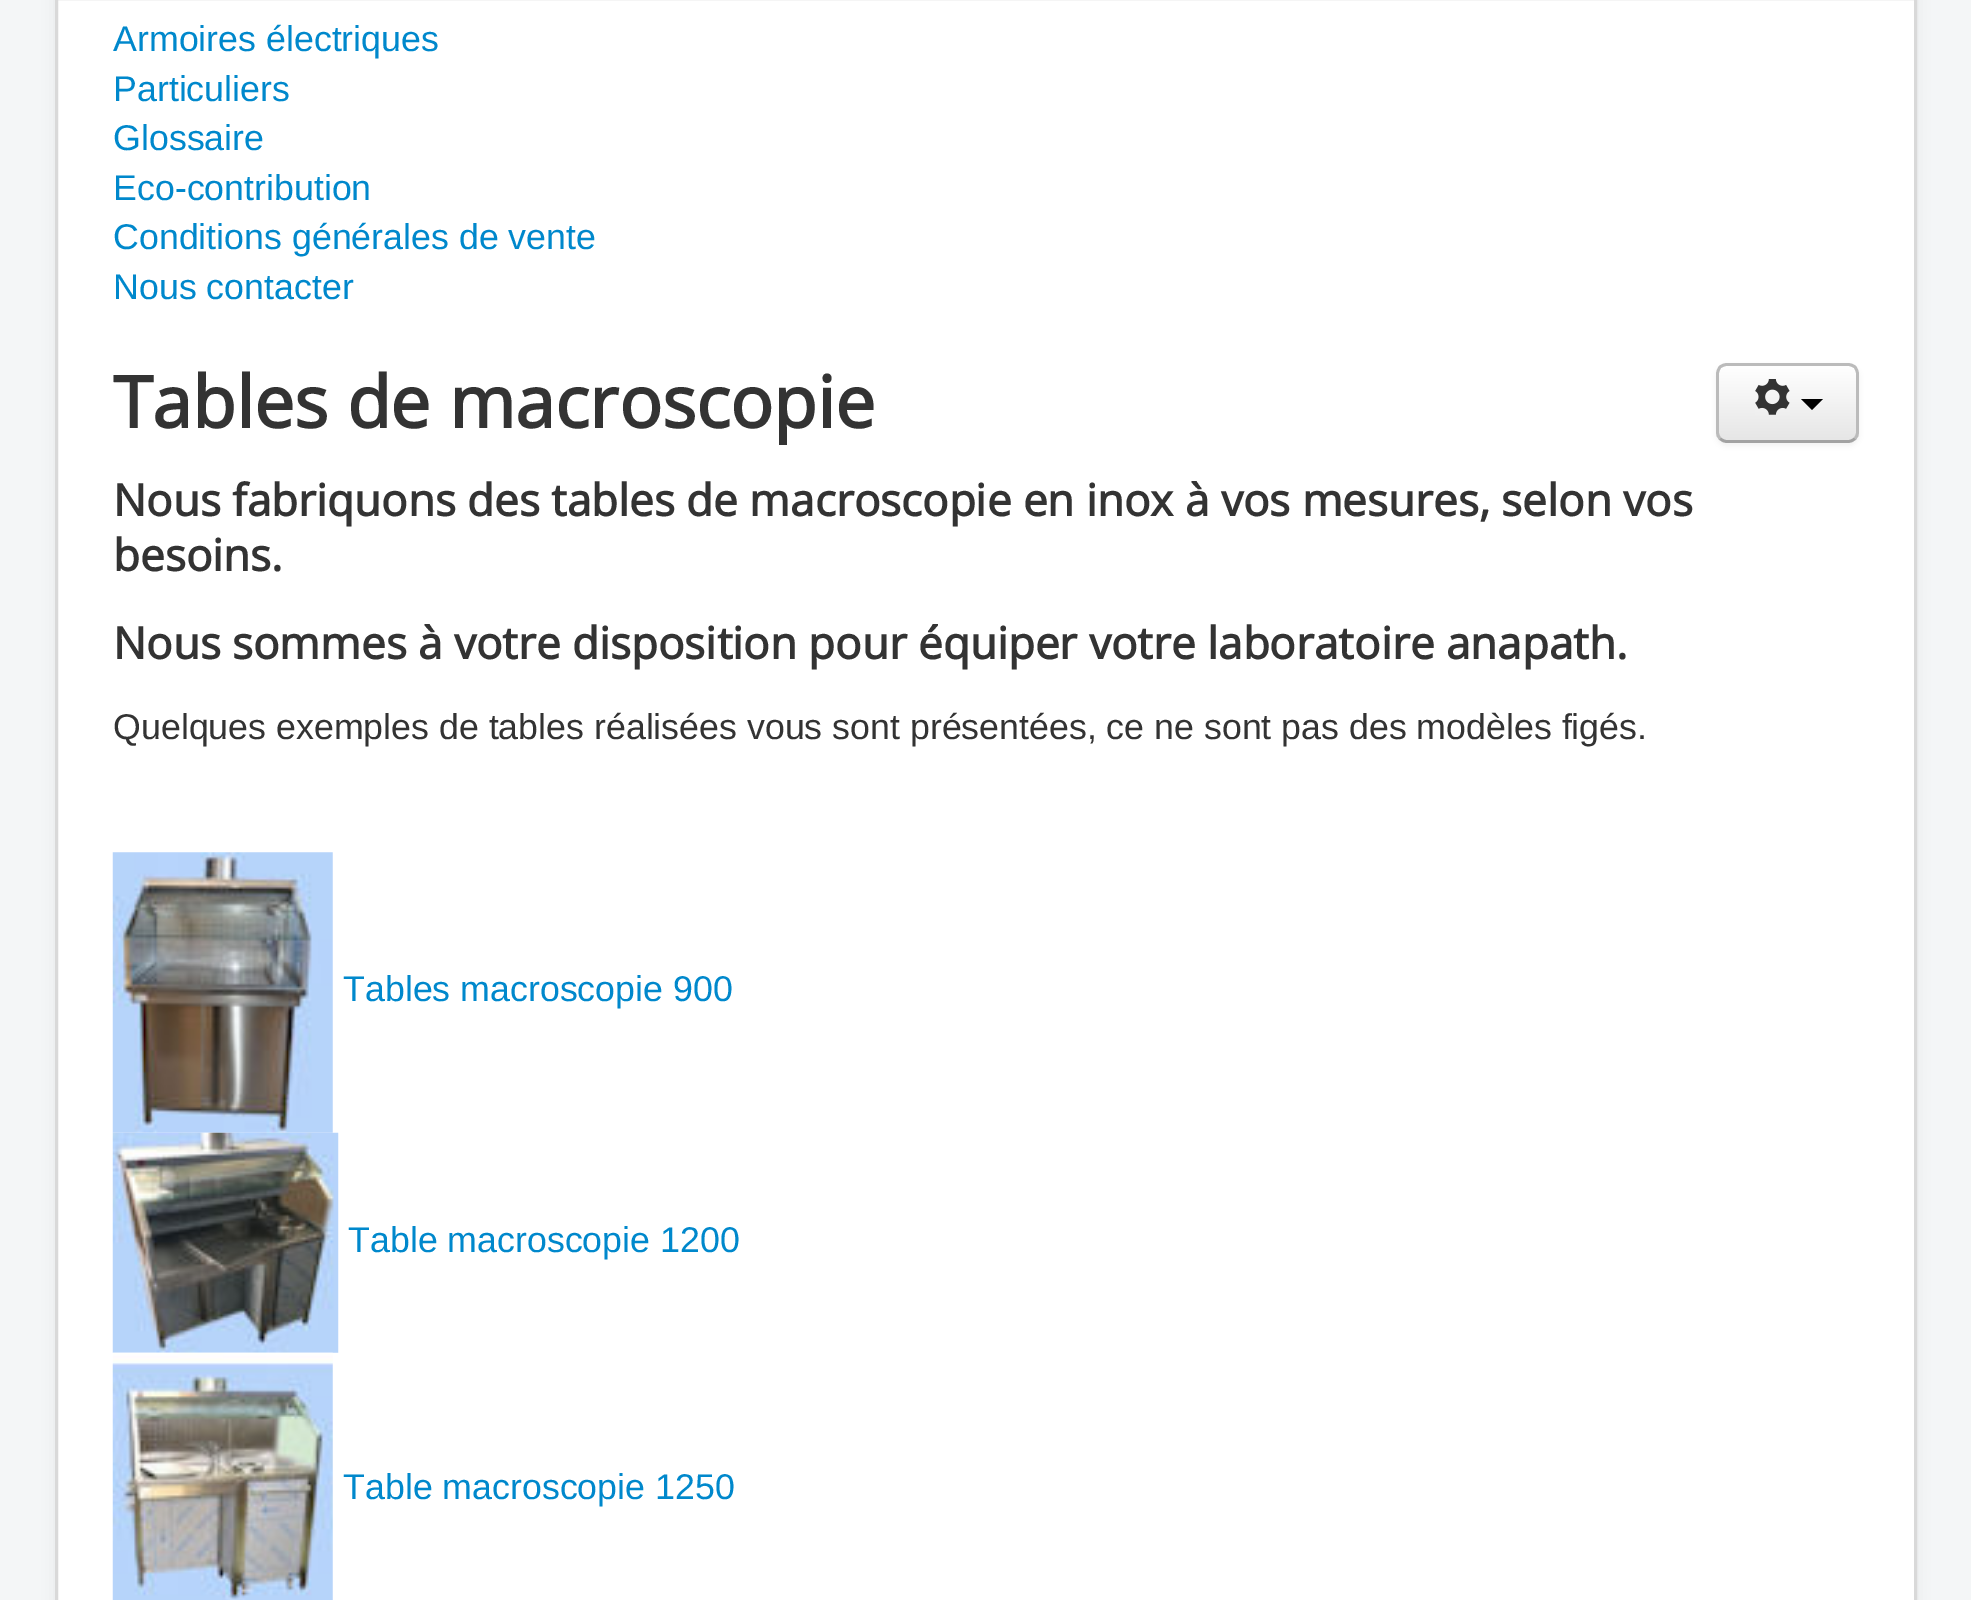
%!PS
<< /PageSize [1971 1600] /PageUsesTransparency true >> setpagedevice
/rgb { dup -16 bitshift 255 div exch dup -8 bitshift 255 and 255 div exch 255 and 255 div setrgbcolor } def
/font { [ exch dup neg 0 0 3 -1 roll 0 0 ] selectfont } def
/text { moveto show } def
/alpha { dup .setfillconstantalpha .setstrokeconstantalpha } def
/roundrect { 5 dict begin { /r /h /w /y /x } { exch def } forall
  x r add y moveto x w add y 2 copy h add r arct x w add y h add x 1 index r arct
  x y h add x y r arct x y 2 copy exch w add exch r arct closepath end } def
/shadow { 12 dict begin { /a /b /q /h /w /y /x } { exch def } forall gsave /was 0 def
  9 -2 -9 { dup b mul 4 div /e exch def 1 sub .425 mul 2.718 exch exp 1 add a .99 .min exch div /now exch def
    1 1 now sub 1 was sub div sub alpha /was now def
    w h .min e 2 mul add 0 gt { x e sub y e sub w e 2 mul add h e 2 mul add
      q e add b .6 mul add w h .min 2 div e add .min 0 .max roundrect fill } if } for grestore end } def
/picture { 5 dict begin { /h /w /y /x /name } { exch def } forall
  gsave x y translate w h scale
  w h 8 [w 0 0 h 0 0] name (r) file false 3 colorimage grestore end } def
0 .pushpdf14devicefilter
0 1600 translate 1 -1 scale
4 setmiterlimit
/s1 { /LiberationSans-Regular 35.75 font 16#0088CC rgb } def
/s2 { /OpenSans-Bold 71.5 font 16#333333 rgb } def
/s3 { /OpenSans-Bold 44 font 16#333333 rgb } def
/s4 { /LiberationSans-Regular 35.75 font 16#333333 rgb } def
16#F4F6F7 rgb
0 0 1971 1600 rectfill
16#000000 rgb
55 -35 1862 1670 11 8 0.05 shadow
16#FFFFFF rgb
56.5 -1.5 moveto 1915.5 -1.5 lineto 1915.5 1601.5 lineto 56.5 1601.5 lineto closepath gsave fill grestore
16#D9D9D9 rgb
3 setlinewidth
stroke
s1
(Armoires électriques) 113 51 text
(Particuliers) 113 101 text
(Glossaire) 113 150 text
(Eco-contribution) 113 200 text
(Conditions générales de vente) 113 249 text
(Nous contacter) 113 299 text
s2
(Tables de macroscopie) 113 428 text
s3
(Nous fabriquons des tables de macroscopie en inox à vos mesures, selon vos) 113 516 text
(besoins.) 113 571 text
(Nous sommes à votre disposition pour équiper votre laboratoire anapath.) 113 659 text
s4
(Quelques exemples de tables réalisées vous sont présentées, ce ne sont pas des modèles figés.) 113 739 text
(pic1.raw) 112 852 221 281 picture
s1
(Tables macroscopie 900) 343 1001 text
(pic2.raw) 112 1132 227 221 picture
(Table macroscopie 1200) 348 1252 text
(pic3.raw) 112 1352 221 248 picture
(Table macroscopie 1250) 343 1499 text
16#000000 rgb
1716 366 143 80 11 3 0.05 shadow
16#F5F5F5 rgb
1716 363 143 80 11 roundrect fill
gsave
1716 363 143 80 11 roundrect clip newpath
gsave 1716 366 moveto 1859 366 lineto 1859 440 lineto 1716 440 lineto closepath clip newpath
<< /ShadingType 2 /ColorSpace /DeviceRGB /Coords [1788 366 1788 440] /Extend [true true] /Function << /FunctionType 2 /Domain [0 1] /C0 [1 1 1] /C1 [0.902 0.902 0.902] /N 1 >> >> shfill grestore
grestore
16#A2A2A2 rgb
2.8 setlinewidth
1855 438.5 moveto 1853 440.5 1850.5 441.5 1848 441.5 curveto 1727 441.5 lineto 1724.5 441.5 1722 440.5 1720 438.5 curveto stroke
16#BBBBBB rgb
1720 438.5 moveto 1718.5 437 1717.5 434.5 1717.5 432 curveto 1717.5 374 lineto 1717.5 371.5 1718.5 369 1720 367 curveto 1722 365.5 1724.5 364.5 1727 364.5 curveto 1848 364.5 lineto 1850.5 364.5 1853 365.5 1855 367 curveto 1856.5 369 1857.5 371.5 1857.5 374 curveto 1857.5 432 lineto 1857.5 434.5 1856.5 437 1855 438.5 curveto stroke
(pic4.raw) 1755 379 35 36 picture
16#000000 rgb
1801 399 moveto 1823 399 lineto 1812 410 lineto closepath fill
.poppdf14devicefilter showpage
